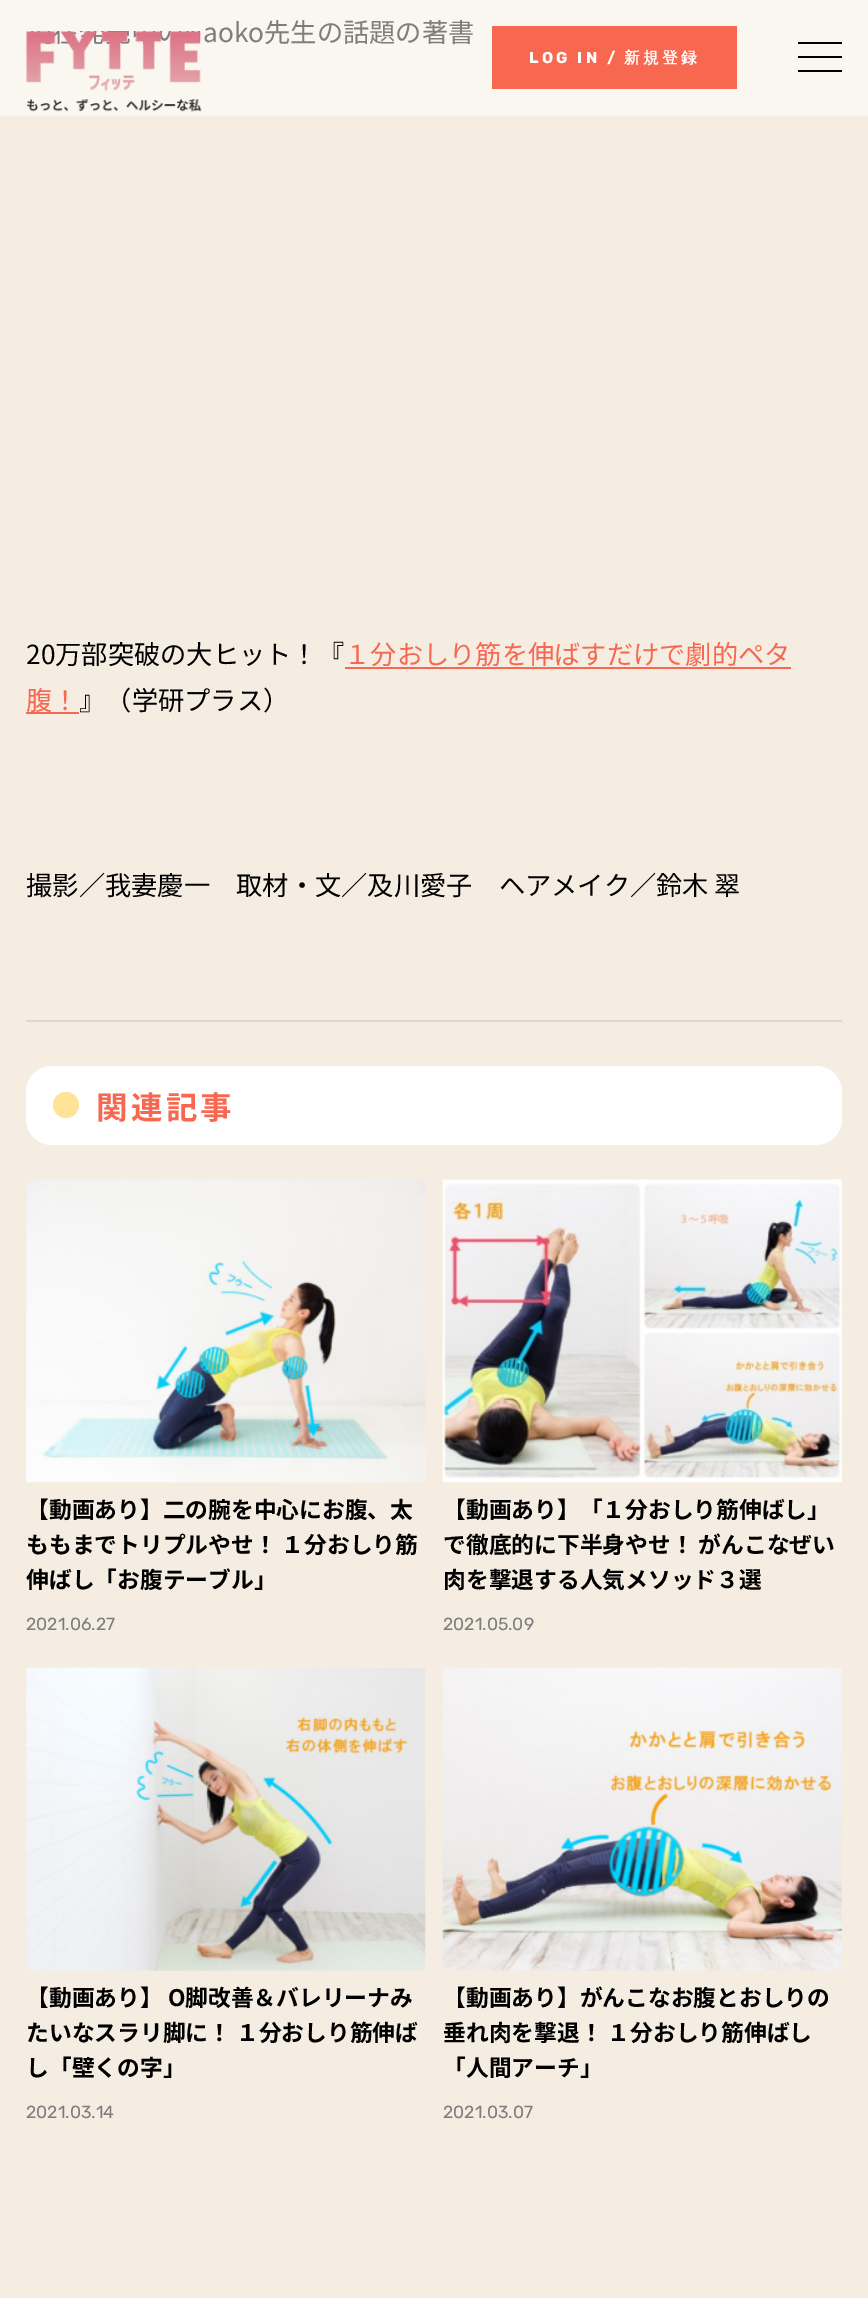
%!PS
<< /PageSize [868 2298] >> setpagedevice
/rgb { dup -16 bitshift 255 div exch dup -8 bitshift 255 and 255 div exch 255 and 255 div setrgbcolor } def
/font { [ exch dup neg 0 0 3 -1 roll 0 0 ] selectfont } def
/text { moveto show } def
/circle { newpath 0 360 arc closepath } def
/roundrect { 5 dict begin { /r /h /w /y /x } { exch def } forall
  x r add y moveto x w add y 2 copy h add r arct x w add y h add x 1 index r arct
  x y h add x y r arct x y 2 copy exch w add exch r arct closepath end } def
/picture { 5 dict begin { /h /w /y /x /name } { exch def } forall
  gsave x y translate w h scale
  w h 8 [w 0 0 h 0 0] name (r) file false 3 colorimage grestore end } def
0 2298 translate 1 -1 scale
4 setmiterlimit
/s1 { /NotoSansJP-Regular 26.25 font 16#7D7D7D rgb } def
/s2 { /NotoSansJP-Regular 26.25 font 16#000000 rgb } def
/s3 { /NotoSansJP-Regular 26.25 font 16#F86851 rgb } def
/s4 { /NotoSansJP-Bold 22.75 font 16#000000 rgb } def
/s5 { /Rubik-Regular 17.5 font 16#7D7D7D rgb } def
16#F5EDE2 rgb
0 0 868 2298 rectfill
16#FAF6F0 rgb
0 0 868 116 rectfill
s1
(aoko先生の話題の著書) 203 42 text
s2
(20万部突破の大ヒット！『) 26 664 text
s3
(１分おしり筋を伸ばすだけで劇的ペタ) 344 664 text
345 667 446 2 rectfill
26 712 53 2 rectfill
(腹！) 26 710 text
s2
(』（学研プラス）) 79 710 text
(撮影／我妻慶一　取材・文／及川愛子　ヘアメイク／鈴木 翠) 26 895 text
16#DDD7CF rgb
26 1020 816 2 rectfill
16#FFFFFF rgb
26 1066 816 79 26 roundrect fill
16#FEE398 rgb
66 1105 13 circle fill
/NotoSansJP-Bold 31.5 font
16#F86851 rgb
96 1119 moveto 3.25 0 (関連記事) ashow
(pic1.raw) 26 1179 400 304 picture
s4
(【動画あり】二の腕を中心にお腹、太) 26 1518 text
(ももまでトリプルやせ！ １分おしり筋) 26 1553 text
(伸ばし「お腹テーブル」) 26 1588 text
s5
(2021.06.27) 26 1630 text
(pic2.raw) 442 1179 400 304 picture
s4
(【動画あり】「１分おしり筋伸ばし」) 443 1518 text
(で徹底的に下半身やせ！ がんこなぜい) 443 1553 text
(肉を撃退する人気メソッド３選) 443 1588 text
s5
(2021.05.09) 443 1630 text
(pic3.raw) 26 1667 400 304 picture
s4
(【動画あり】 O脚改善＆バレリーナみ) 26 2006 text
(たいなスラリ脚に！ １分おしり筋伸ば) 26 2041 text
(し「壁くの字」) 26 2076 text
s5
(2021.03.14) 26 2118 text
(pic4.raw) 442 1667 400 304 picture
s4
(【動画あり】がんこなお腹とおしりの) 443 2006 text
(垂れ肉を撃退！ １分おしり筋伸ばし) 443 2041 text
(「人間アーチ」) 443 2076 text
s5
(2021.03.07) 443 2118 text
(pic5.raw) 26 31 176 81 picture
16#F86851 rgb
492 26 245 63 rectfill
/Rubik-Bold 15.75 font
16#FFFFFF rgb
529 63 moveto 3.25 0 (LOG IN /) ashow
/WenQuanYiZenHei-Bold 15.75 font
624 63 moveto 3.25 0 (新規登録) ashow
16#000000 rgb
798 42 44 2 rectfill
798 56 44 2 rectfill
798 70 44 2 rectfill
showpage
